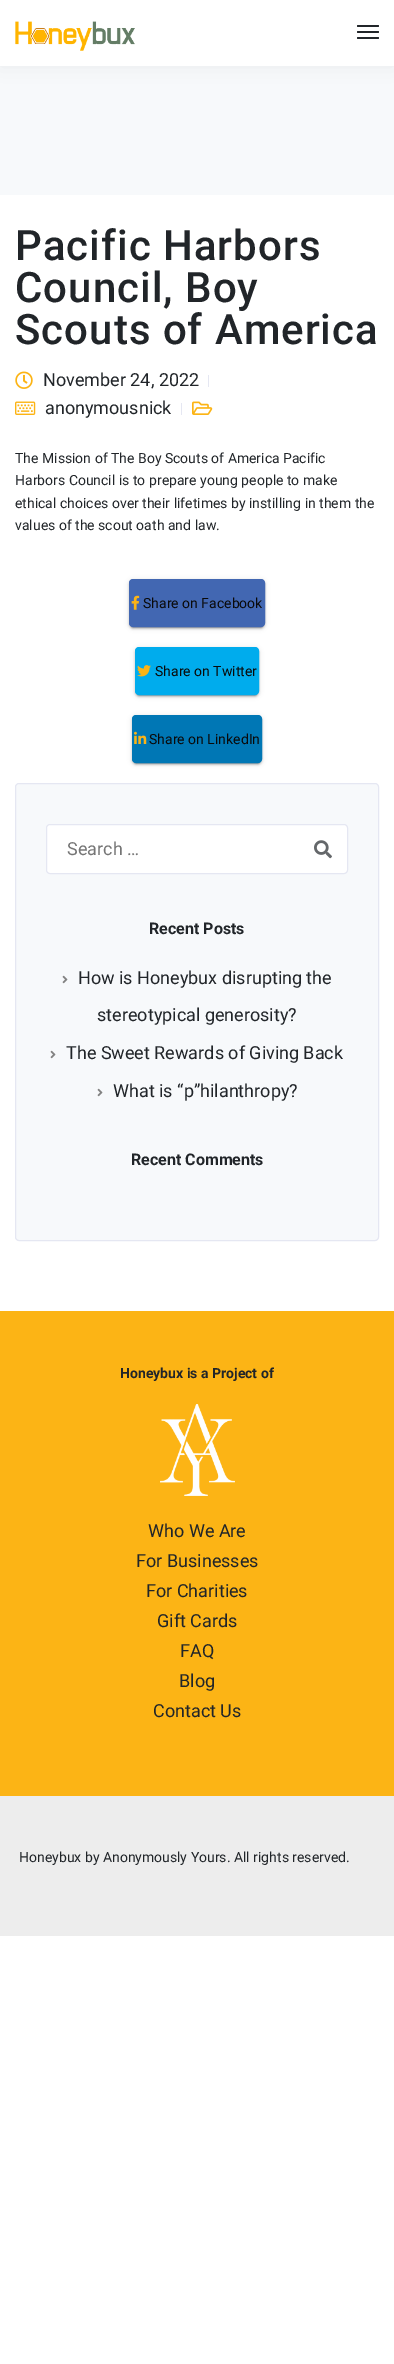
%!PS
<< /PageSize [394 2364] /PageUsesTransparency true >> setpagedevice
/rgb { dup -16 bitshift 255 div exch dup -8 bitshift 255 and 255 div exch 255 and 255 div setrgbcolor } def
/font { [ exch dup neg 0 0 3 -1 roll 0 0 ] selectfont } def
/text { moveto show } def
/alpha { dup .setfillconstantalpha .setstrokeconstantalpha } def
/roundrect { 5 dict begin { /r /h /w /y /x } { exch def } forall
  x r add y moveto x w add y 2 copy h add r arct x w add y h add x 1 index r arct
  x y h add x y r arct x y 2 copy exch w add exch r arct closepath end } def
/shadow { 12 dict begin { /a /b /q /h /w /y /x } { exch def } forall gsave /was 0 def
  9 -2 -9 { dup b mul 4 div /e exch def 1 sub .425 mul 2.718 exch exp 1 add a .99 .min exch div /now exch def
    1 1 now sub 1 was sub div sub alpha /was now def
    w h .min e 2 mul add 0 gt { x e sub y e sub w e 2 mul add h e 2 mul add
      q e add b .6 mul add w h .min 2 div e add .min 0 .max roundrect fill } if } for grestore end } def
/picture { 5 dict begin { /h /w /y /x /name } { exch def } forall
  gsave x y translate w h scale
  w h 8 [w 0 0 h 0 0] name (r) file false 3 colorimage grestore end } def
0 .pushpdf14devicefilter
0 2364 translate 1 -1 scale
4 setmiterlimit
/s1 { /Roboto-Regular 18 font 16#212529 rgb } def
/s2 { /Roboto-Regular 14 font 16#212529 rgb } def
/s3 { /Roboto-Regular 14 font 16#0A0A0A rgb } def
/s4 { /Roboto-Regular 18 font 16#757575 rgb } def
/s5 { /Roboto-Bold 16 font 16#212529 rgb } def
/s6 { /Roboto-Bold 14 font 16#212529 rgb } def
16#FFFFFF rgb
0 0 394 2364 rectfill
16#F7F9FB rgb
0 66 394 129 rectfill
16#000000 rgb
0 0 394 66 0 10 0.05 shadow
16#FFFFFF rgb
0 0 394 66 rectfill
(pic1.raw) 15 21 120 30 picture
16#212529 rgb
357 25 22 2 1 roundrect fill
357 31 22 2 1 roundrect fill
357 37 22 2 1 roundrect fill
/Roboto-Medium 42 font
15 260 moveto 1 0 (Pacific Harbors) ashow
15 302 moveto 1 0 (Council, Boy) ashow
15 344 moveto 1 0 (Scouts of America) ashow
(pic2.raw) 15 371 18 18 picture
s1
(November 24, 2022) 43 386 text
16#E5E7F2 rgb
208 375 1 12 rectfill
(pic3.raw) 15 401 21 14 picture
s1
(anonymousnick) 45 414 text
16#E5E7F2 rgb
181 403 1 12 rectfill
(pic4.raw) 192 401 21 14 picture
s2
(The Mission of The Boy Scouts of America Pacific) 15 463 text
(Harbors Council is to prepare young people to make) 15 485 text
(ethical choices over their lifetimes by instilling in them the) 15 508 text
(values of the scout oath and law.) 15 530 text
16#000000 rgb
129 580 136 48 4 2.5 0.12 shadow
129 581 136 48 4 1 0.14 shadow
131 584 132 44 2 0.5 0.2 shadow
16#4267B2 rgb
130 580 134 46 3 roundrect gsave fill grestore
2 setlinewidth
stroke
(pic5.raw) 131 595 9 15 picture
s3
(Share on Facebook) 143 608 text
16#000000 rgb
135 648 124 48 4 2.5 0.12 shadow
135 649 124 48 4 1 0.14 shadow
137 652 120 44 2 0.5 0.2 shadow
16#00ACED rgb
136 648 122 46 3 roundrect gsave fill grestore
stroke
(pic6.raw) 137 665 14 12 picture
s3
(Share on Twitter) 155 676 text
16#000000 rgb
132 716 130 48 4 2.5 0.12 shadow
132 717 130 48 4 1 0.14 shadow
134 720 126 44 2 0.5 0.2 shadow
16#0077B5 rgb
133 716 128 46 3 roundrect gsave fill grestore
stroke
(pic7.raw) 134 731 13 13 picture
s3
(Share on LinkedIn) 149 744 text
16#F7F9FB rgb
15.5 783.5 363 457 3.5 roundrect gsave fill grestore
16#E5E7F2 rgb
1 setlinewidth
stroke
16#FFFFFF rgb
46.5 824.5 301 49 3.5 roundrect gsave fill grestore
16#E5E7F2 rgb
stroke
s4
(Search …) 67 855 text
(pic8.raw) 314 840 18 19 picture
s5
(Recent Posts) 149 934 text
(pic9.raw) 62 975 6 9 picture
s1
(How is Honeybux disrupting the) 78 984 text
(stereotypical generosity?) 97 1021 text
(pic9.raw) 50 1050 6 9 picture
(The Sweet Rewards of Giving Back) 66 1059 text
(pic9.raw) 97 1088 6 9 picture
(What is “p”hilanthropy?) 113 1097 text
s5
(Recent Comments) 131 1165 text
16#FCB415 rgb
0 1311 394 485 rectfill
s6
(Honeybux is a Project of) 120 1378 text
(pic10.raw) 160 1404 75 92 picture
s1
(Who We Are) 148 1537 text
(For Businesses) 136 1567 text
(For Charities) 146 1597 text
(Gift Cards) 157 1627 text
(FAQ) 180 1657 text
(Blog) 179 1687 text
(Contact Us) 153 1717 text
16#EDEDED rgb
0 1796 394 140 rectfill
s2
(Honeybux by Anonymously Yours. All rights reserved.) 19 1862 text
.poppdf14devicefilter showpage
